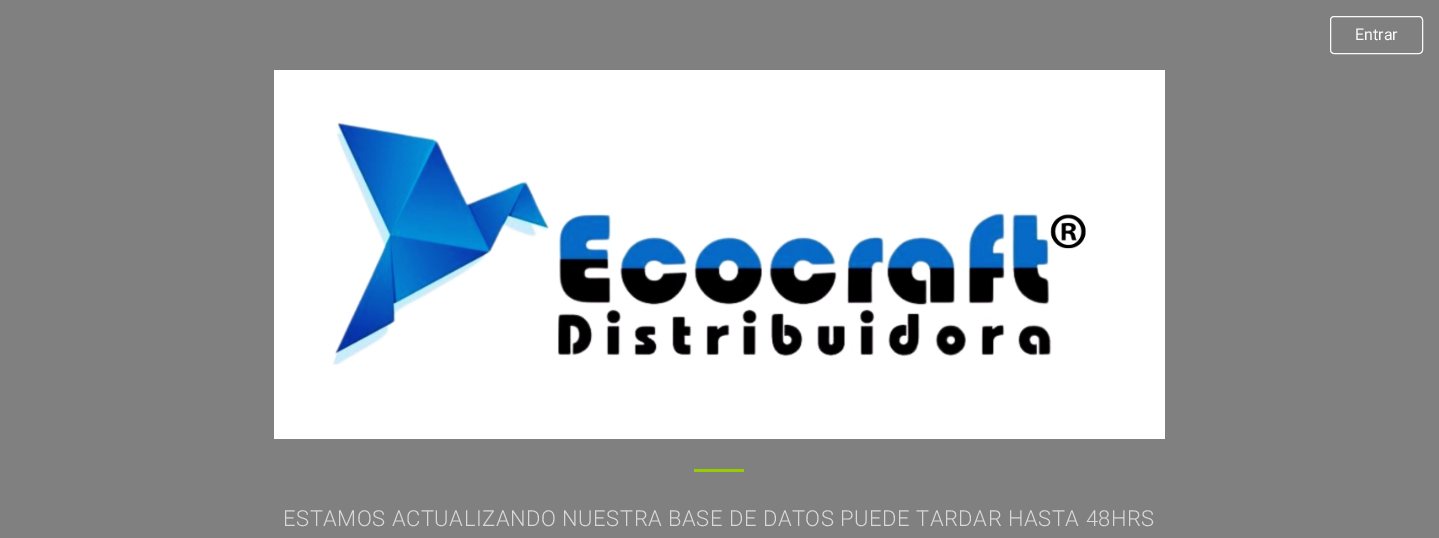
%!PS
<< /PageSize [1439 538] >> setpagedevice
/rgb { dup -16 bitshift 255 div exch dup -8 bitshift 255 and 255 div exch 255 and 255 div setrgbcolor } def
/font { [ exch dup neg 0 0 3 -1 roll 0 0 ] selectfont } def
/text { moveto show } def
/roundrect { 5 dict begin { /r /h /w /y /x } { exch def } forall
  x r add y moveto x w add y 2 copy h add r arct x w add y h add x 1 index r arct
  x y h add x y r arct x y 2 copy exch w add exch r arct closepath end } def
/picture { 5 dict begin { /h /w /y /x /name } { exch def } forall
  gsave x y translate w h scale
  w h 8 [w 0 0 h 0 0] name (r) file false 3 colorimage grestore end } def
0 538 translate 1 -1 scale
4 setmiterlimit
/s1 { /Roboto-Regular 16 font 16#F8F9FA rgb } def
16#808080 rgb
0 0 1439 538 rectfill
16#F8F9FA rgb
1330.5 16.5 92 37 3.5 roundrect stroke
s1
(Entrar) 1355 40 text
(pic1.raw) 274 70 891 369 picture
16#99CC00 rgb
694 469 50 3 rectfill
/Roboto-Light 22 font
16#D9D9D9 rgb
283 526 moveto 0.5 0 (ESTAMOS ACTUALIZANDO NUESTRA BASE DE DATOS PUEDE TARDAR HASTA 48HRS) ashow
showpage
